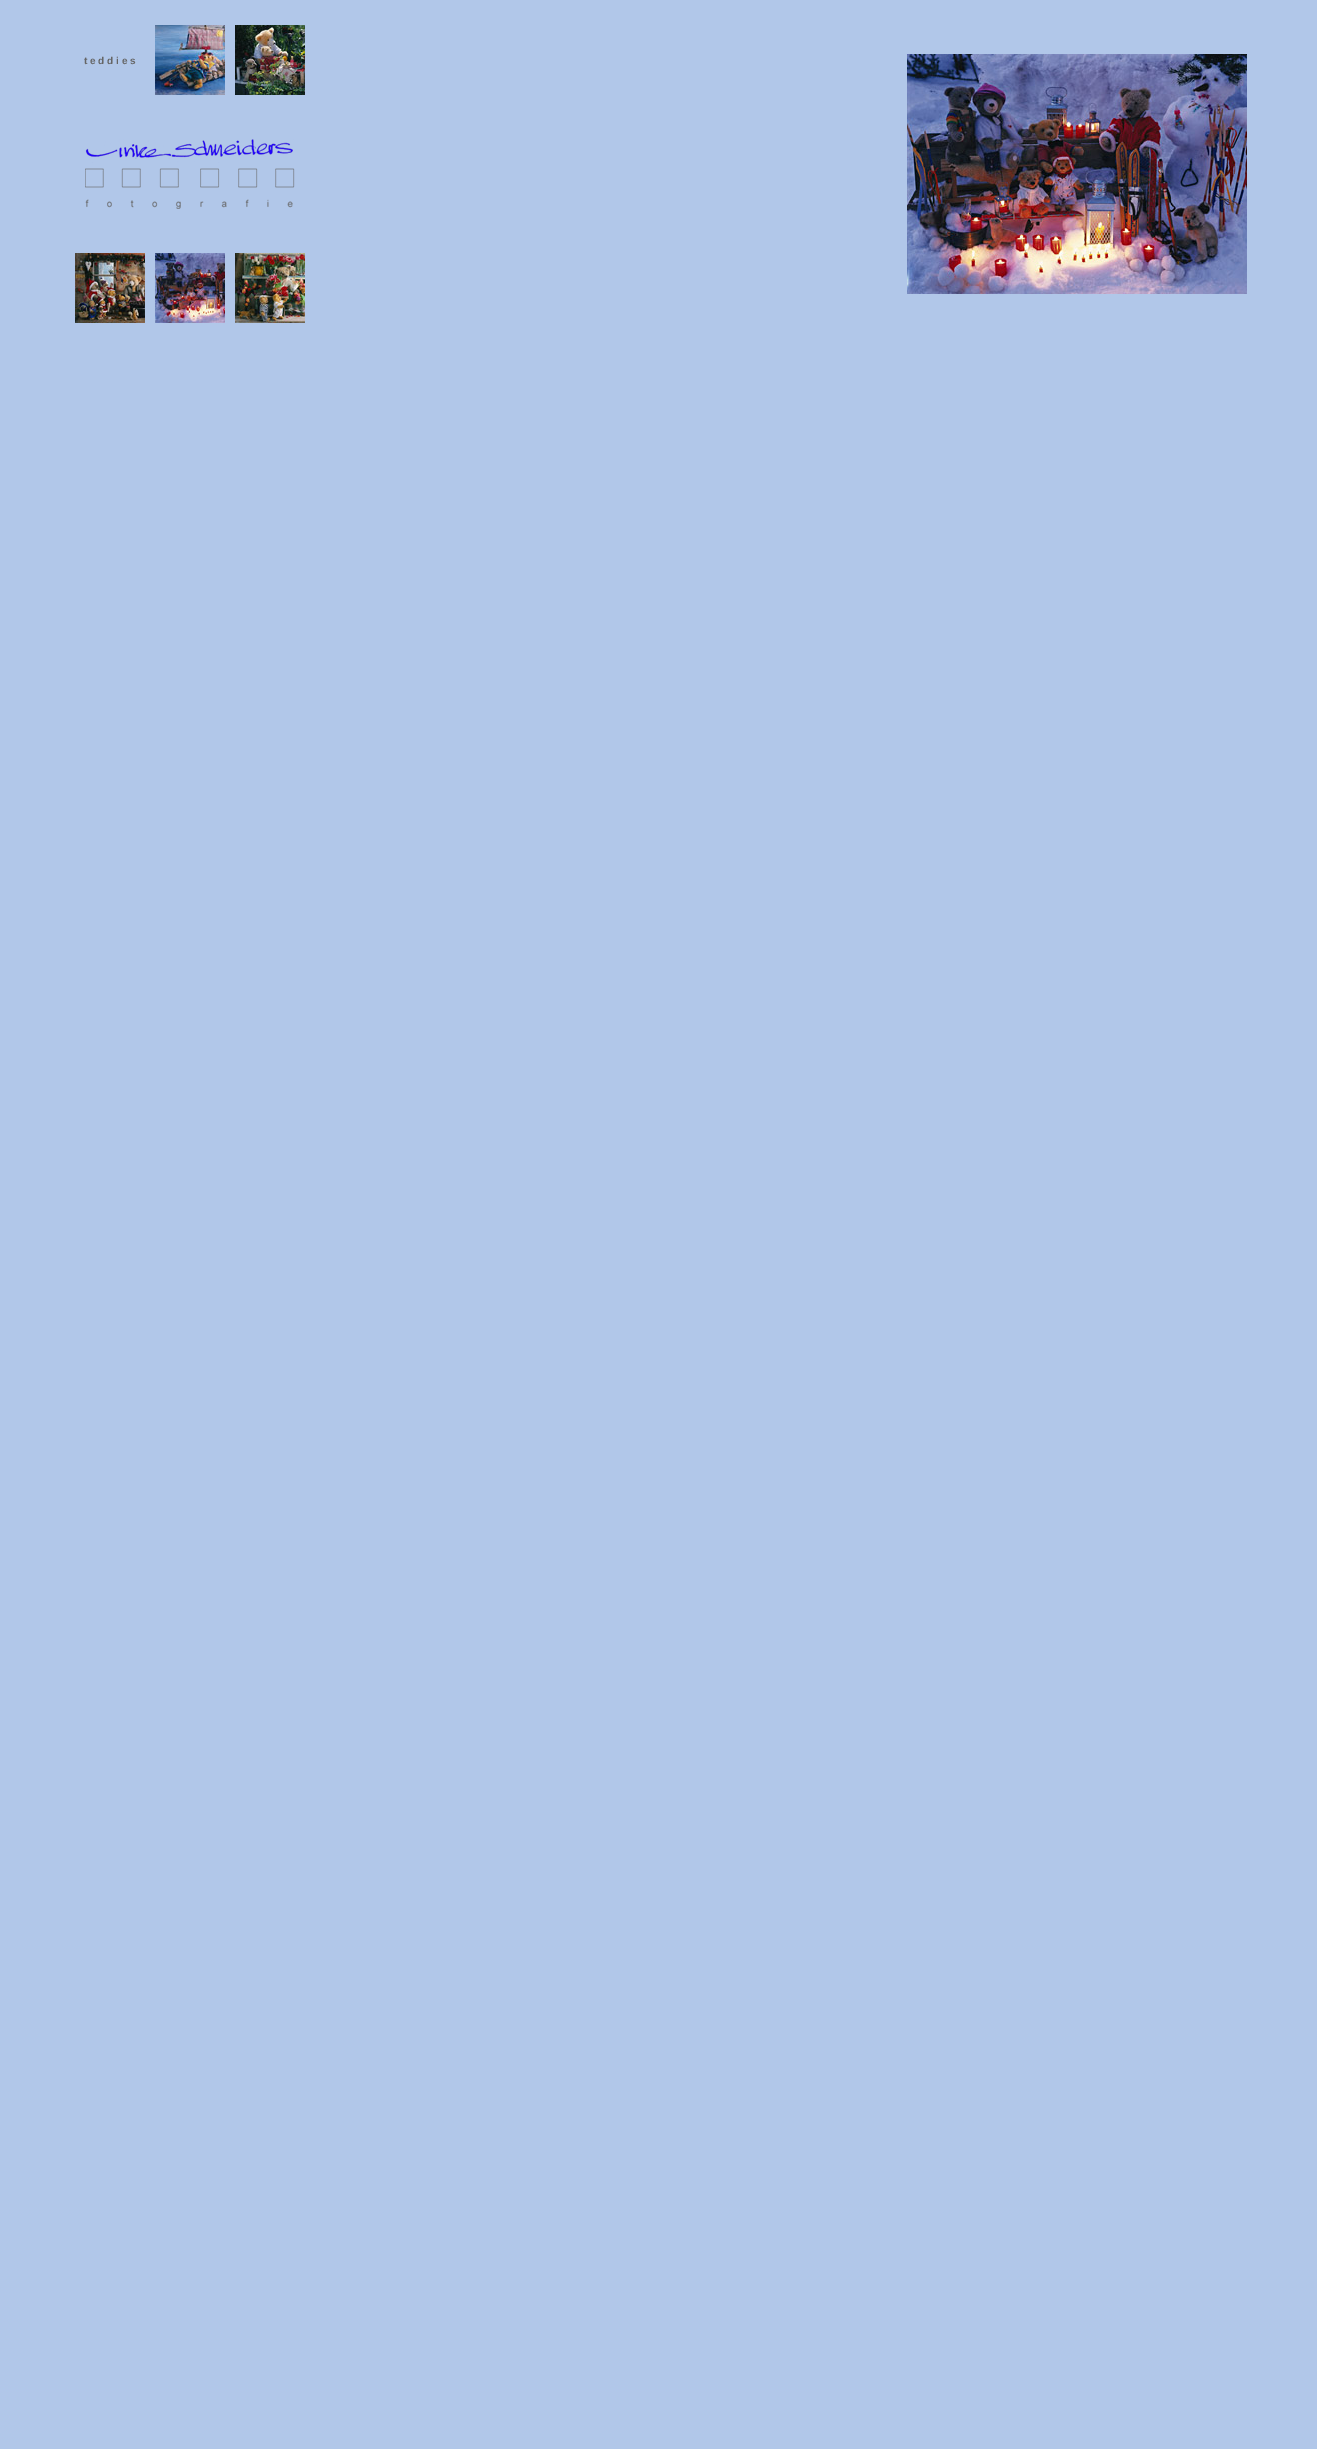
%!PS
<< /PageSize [1317 2449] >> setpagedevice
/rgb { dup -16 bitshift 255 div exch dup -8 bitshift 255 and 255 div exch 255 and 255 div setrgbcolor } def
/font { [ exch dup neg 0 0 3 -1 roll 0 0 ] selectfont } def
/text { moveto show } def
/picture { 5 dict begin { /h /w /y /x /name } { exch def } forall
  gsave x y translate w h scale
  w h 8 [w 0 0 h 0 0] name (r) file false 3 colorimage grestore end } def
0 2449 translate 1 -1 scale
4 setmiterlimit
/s1 { /LiberationSans-Bold 10 font 16#666666 rgb } def
16#B1C7E9 rgb
0 0 1317 2449 rectfill
s1
(t e d d i e s) 84 64 text
(pic1.raw) 155 25 70 70 picture
(pic2.raw) 235 25 70 70 picture
(pic3.raw) 85 139 210 70 picture
(pic4.raw) 75 253 70 70 picture
(pic5.raw) 155 253 70 70 picture
(pic6.raw) 235 253 70 70 picture
(pic7.raw) 907 54 340 240 picture
showpage
